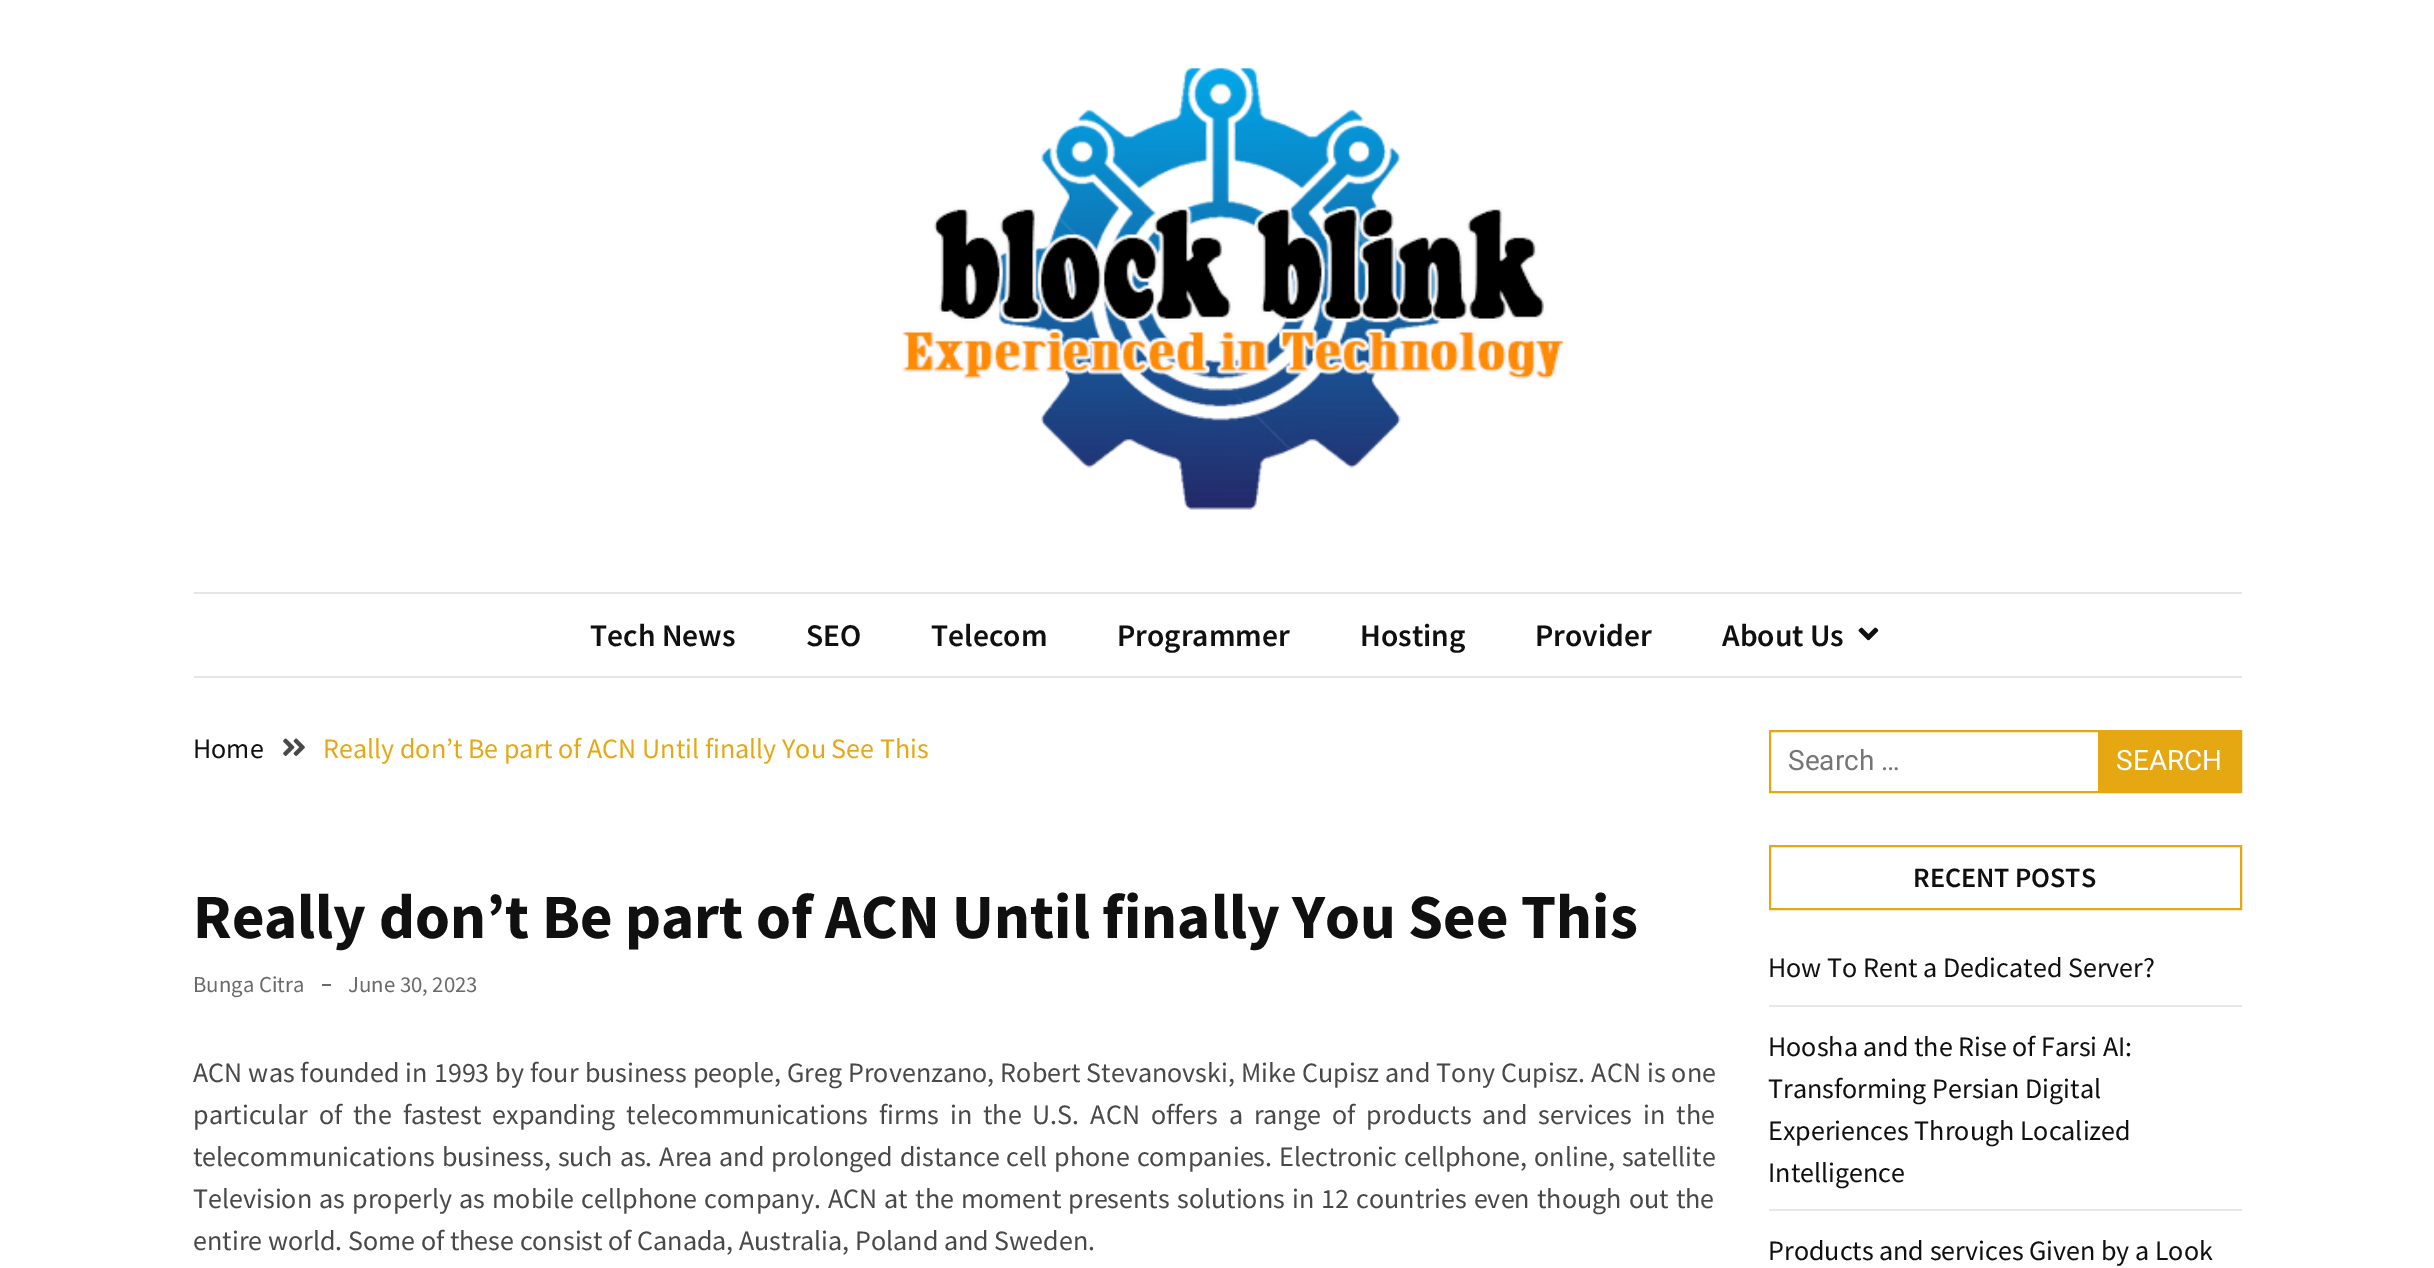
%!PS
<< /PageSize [2434 1268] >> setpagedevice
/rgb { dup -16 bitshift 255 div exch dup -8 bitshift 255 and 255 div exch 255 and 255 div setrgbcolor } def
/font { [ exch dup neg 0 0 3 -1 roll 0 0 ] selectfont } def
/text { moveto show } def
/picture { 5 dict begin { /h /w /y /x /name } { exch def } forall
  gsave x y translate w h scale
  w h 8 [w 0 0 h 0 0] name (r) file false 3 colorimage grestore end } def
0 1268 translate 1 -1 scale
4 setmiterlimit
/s1 { /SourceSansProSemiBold-SemiBold 31.5 font 16#101010 rgb } def
/s2 { /SourceSansPro-Regular 28 font 16#101010 rgb } def
/s3 { /SourceSansPro-Regular 28 font 16#E5A812 rgb } def
/s4 { /SourceSansPro-Bold 63 font 16#101010 rgb } def
/s5 { /SourceSansPro-Regular 22.75 font 16#6A6A6A rgb } def
/s6 { /SourceSansPro-Regular 28 font 16#484848 rgb } def
/s7 { /Roboto-Regular 28 font 16#757575 rgb } def
/s8 { /Roboto-Regular 28 font 16#FFFFFF rgb } def
/s9 { /SourceSansProSemiBold-SemiBold 28 font 16#101010 rgb } def
16#FFFFFF rgb
0 0 2434 1268 rectfill
(pic1.raw) 902 67 664 443 picture
16#E5E5E5 rgb
194 592 2048 2 rectfill
194 676 2048 2 rectfill
s1
(Tech News) 590 646 text
(SEO) 806 646 text
(Telecom) 931 646 text
(Programmer) 1117 646 text
(Hosting) 1360 646 text
(Provider) 1535 646 text
(About Us) 1722 646 text
(pic2.raw) 1858 627 21 14 picture
s2
(Home) 193 758 text
(pic3.raw) 283 738 22 18 picture
s3
(Really don’t Be part of ACN Until finally You See This) 323 758 text
s4
(Really don’t Be part of ACN Until finally You See This) 193 938 text
s5
(Bunga Citra) 193 992 text
322 984 9 2 rectfill
(June 30, 2023) 348 992 text
/SourceSansPro-Regular 28 font
16#484848 rgb
193 1082 moveto 0.5 0 32 (ACN was founded in 1993 by four business people, Greg Provenzano, Robert Stevanovski, Mike Cupisz and Tony Cupisz. ACN is one) widthshow
193 1124 moveto 5.4 0 32 (particular of the fastest expanding telecommunications firms in the U.S. ACN offers a range of products and services in the) widthshow
193 1166 moveto 1.4 0 32 (telecommunications business, such as. Area and prolonged distance cell phone companies. Electronic cellphone, online, satellite) widthshow
193 1208 moveto 1.6 0 32 (Television as properly as mobile cellphone company. ACN at the moment presents solutions in 12 countries even though out the) widthshow
(entire world. Some of these consist of Canada, Australia, Poland and Sweden.) 193 1250 text
16#E5A812 rgb
2 setlinewidth
1770 731 471 61 rectstroke
s7
(Search …) 1788 770 text
16#E5A812 rgb
2098 732 142 59 rectfill
s8
(SEARCH) 2116 770 text
16#E5A812 rgb
1770 846 471 63 rectstroke
s9
(RECENT POSTS) 1913 887 text
s2
(How To Rent a Dedicated Server?) 1768 977 text
16#E8E8E8 rgb
1769 1005 473 2 rectfill
s2
(Hoosha and the Rise of Farsi AI:) 1768 1056 text
(Transforming Persian Digital) 1768 1098 text
(Experiences Through Localized) 1768 1140 text
(Intelligence) 1768 1182 text
16#E8E8E8 rgb
1769 1209 473 2 rectfill
s2
(Products and services Given by a Look) 1768 1260 text
showpage
